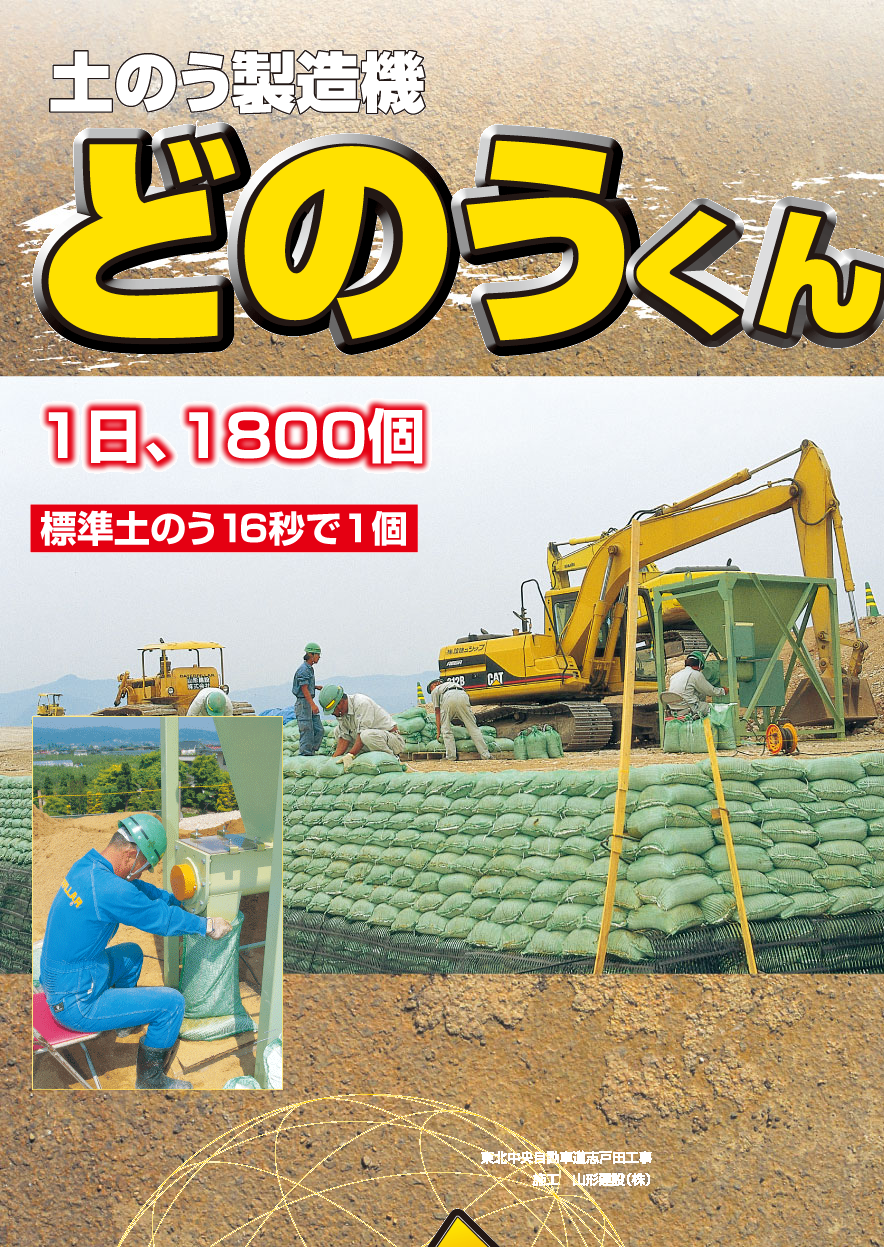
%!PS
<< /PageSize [884 1247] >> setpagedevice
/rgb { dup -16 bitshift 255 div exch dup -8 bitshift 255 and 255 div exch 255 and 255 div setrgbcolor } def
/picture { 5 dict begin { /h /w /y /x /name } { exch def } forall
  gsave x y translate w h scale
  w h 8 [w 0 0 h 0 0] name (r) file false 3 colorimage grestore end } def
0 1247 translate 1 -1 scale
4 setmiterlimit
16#FFFFFF rgb
0 0 884 1247 rectfill
(pic1.raw) 0 0 884 1247 picture
(pic2.raw) 32 50 852 307 picture
(pic3.raw) 39 398 393 76 picture
(pic4.raw) 30 504 388 49 picture
(pic5.raw) 32 716 251 374 picture
(pic6.raw) 117 1094 535 153 picture
showpage
